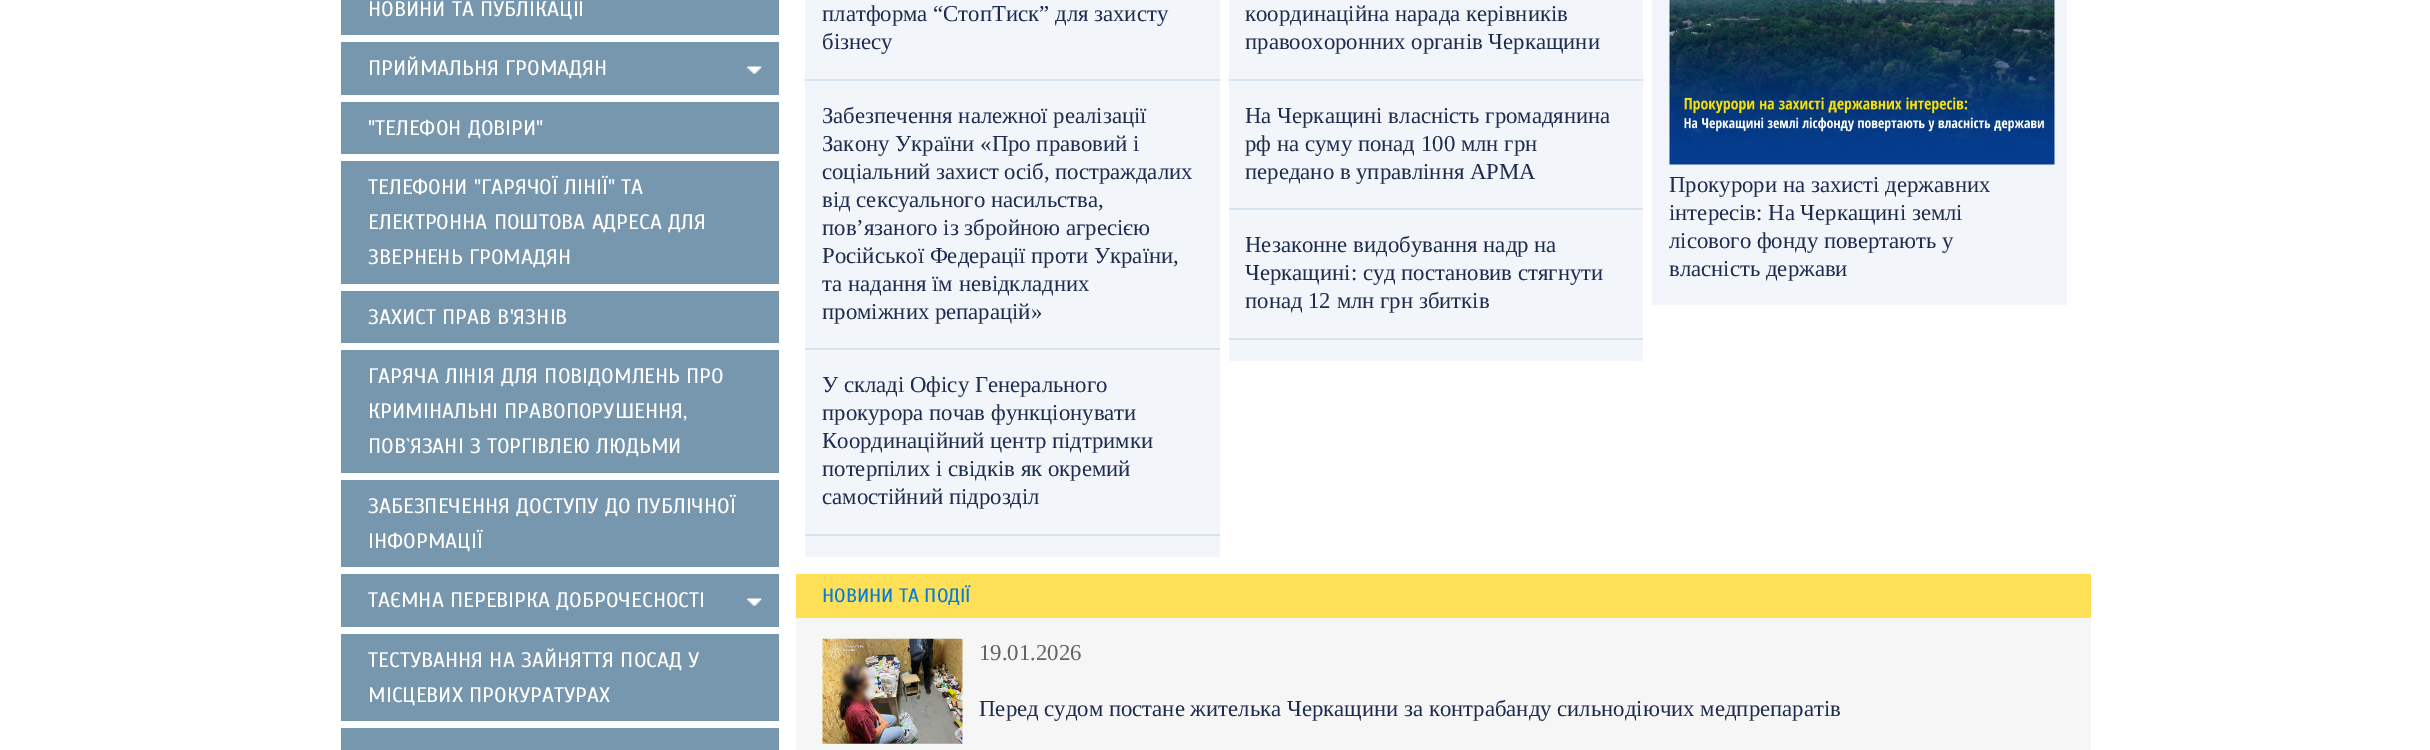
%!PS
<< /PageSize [2430 750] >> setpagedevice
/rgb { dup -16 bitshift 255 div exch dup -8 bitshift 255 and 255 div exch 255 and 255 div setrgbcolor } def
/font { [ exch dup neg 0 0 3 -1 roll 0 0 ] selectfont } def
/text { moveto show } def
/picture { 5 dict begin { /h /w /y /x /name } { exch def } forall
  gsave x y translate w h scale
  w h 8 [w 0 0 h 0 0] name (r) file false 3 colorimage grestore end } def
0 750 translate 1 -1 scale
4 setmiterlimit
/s1 { /Scada-Regular 21 font 16#FFFFFF rgb } def
/s2 { /LiberationSerif-Regular 22.75 font 16#1F2C4F rgb } def
/s3 { /Scada-Regular 19.25 font 16#017DDD rgb } def
/s4 { /LiberationSerif-Regular 22.75 font 16#636363 rgb } def
16#FFFFFF rgb
0 0 2430 750 rectfill
16#7797AF rgb
341 0 438 35 rectfill
s1
(НОВИНИ ТА ПУБЛІКАЦІЇ) 368 16 text
16#7797AF rgb
341 42 438 53 rectfill
s1
(ПРИЙМАЛЬНЯ ГРОМАДЯН) 368 75 text
(pic1.raw) 747 66 15 8 picture
16#7797AF rgb
341 102 438 52 rectfill
s1
("ТЕЛЕФОН ДОВІРИ") 368 135 text
16#7797AF rgb
341 161 438 123 rectfill
s1
(ТЕЛЕФОНИ "ГАРЯЧОЇ ЛІНІЇ" ТА) 368 194 text
(ЕЛЕКТРОННА ПОШТОВА АДРЕСА ДЛЯ) 368 229 text
(ЗВЕРНЕНЬ ГРОМАДЯН) 368 264 text
16#7797AF rgb
341 291 438 52 rectfill
s1
(ЗАХИСТ ПРАВ В'ЯЗНІВ) 368 324 text
16#7797AF rgb
341 350 438 123 rectfill
s1
(ГАРЯЧА ЛІНІЯ ДЛЯ ПОВІДОМЛЕНЬ ПРО) 368 383 text
(КРИМІНАЛЬНІ ПРАВОПОРУШЕННЯ,) 368 418 text
(ПОВ`ЯЗАНІ З ТОРГІВЛЕЮ ЛЮДЬМИ) 368 453 text
16#7797AF rgb
341 480 438 87 rectfill
s1
(ЗАБЕЗПЕЧЕННЯ ДОСТУПУ ДО ПУБЛІЧНОЇ) 368 513 text
(ІНФОРМАЦІЇ) 368 548 text
16#7797AF rgb
341 574 438 53 rectfill
s1
(ТАЄМНА ПЕРЕВІРКА ДОБРОЧЕСНОСТІ) 368 607 text
(pic1.raw) 747 598 15 8 picture
16#7797AF rgb
341 634 438 87 rectfill
s1
(ТЕСТУВАННЯ НА ЗАЙНЯТТЯ ПОСАД У) 368 667 text
(МІСЦЕВИХ ПРОКУРАТУРАХ) 368 702 text
16#7797AF rgb
341 728 438 22 rectfill
16#F2F6FA rgb
805 0 415 557 rectfill
s2
(платформа “СтопТиск” для захисту) 822 21 text
(бізнесу) 822 49 text
16#D7E4EF rgb
805 79 415 2 rectfill
s2
(Забезпечення належної реалізації) 822 123 text
(Закону України «Про правовий і) 822 151 text
(соціальний захист осіб, постраждалих) 822 179 text
(від сексуального насильства,) 822 207 text
(пов’язаного із збройною агресією) 822 235 text
(Російської Федерації проти України,) 822 263 text
(та надання їм невідкладних) 822 291 text
(проміжних репарацій») 822 319 text
16#D7E4EF rgb
805 348 415 2 rectfill
s2
(У складі Офісу Генерального) 822 392 text
(прокурора почав функціонувати) 822 420 text
(Координаційний центр підтримки) 822 448 text
(потерпілих і свідків як окремий) 822 476 text
(самостійний підрозділ) 822 504 text
16#D7E4EF rgb
805 534 415 2 rectfill
16#F2F6FA rgb
1229 0 414 361 rectfill
s2
(координаційна нарада керівників) 1245 21 text
(правоохоронних органів Черкащини) 1245 49 text
16#D7E4EF rgb
1229 79 414 2 rectfill
s2
(На Черкащині власність громадянина) 1245 123 text
(рф на суму понад 100 млн грн) 1245 151 text
(передано в управління АРМА) 1245 179 text
16#D7E4EF rgb
1229 208 414 2 rectfill
s2
(Незаконне видобування надр на) 1245 252 text
(Черкащині: суд постановив стягнути) 1245 280 text
(понад 12 млн грн збитків) 1245 308 text
16#D7E4EF rgb
1229 338 414 2 rectfill
16#F2F6FA rgb
1652 0 415 305 rectfill
(pic2.raw) 1669 0 386 165 picture
s2
(Прокурори на захисті державних) 1669 192 text
(інтересів: На Черкащині землі) 1669 220 text
(лісового фонду повертають у) 1669 248 text
(власність держави) 1669 276 text
16#F6F6F6 rgb
796 618 1295 132 rectfill
16#FFE057 rgb
796 574 1295 44 rectfill
s3
(НОВИНИ ТА ПОДІЇ) 822 602 text
(pic3.raw) 822 638 141 106 picture
s4
(19.01.2026) 979 660 text
s2
(Перед судом постане жителька Черкащини за контрабанду сильнодіючих медпрепаратів) 979 716 text
showpage
